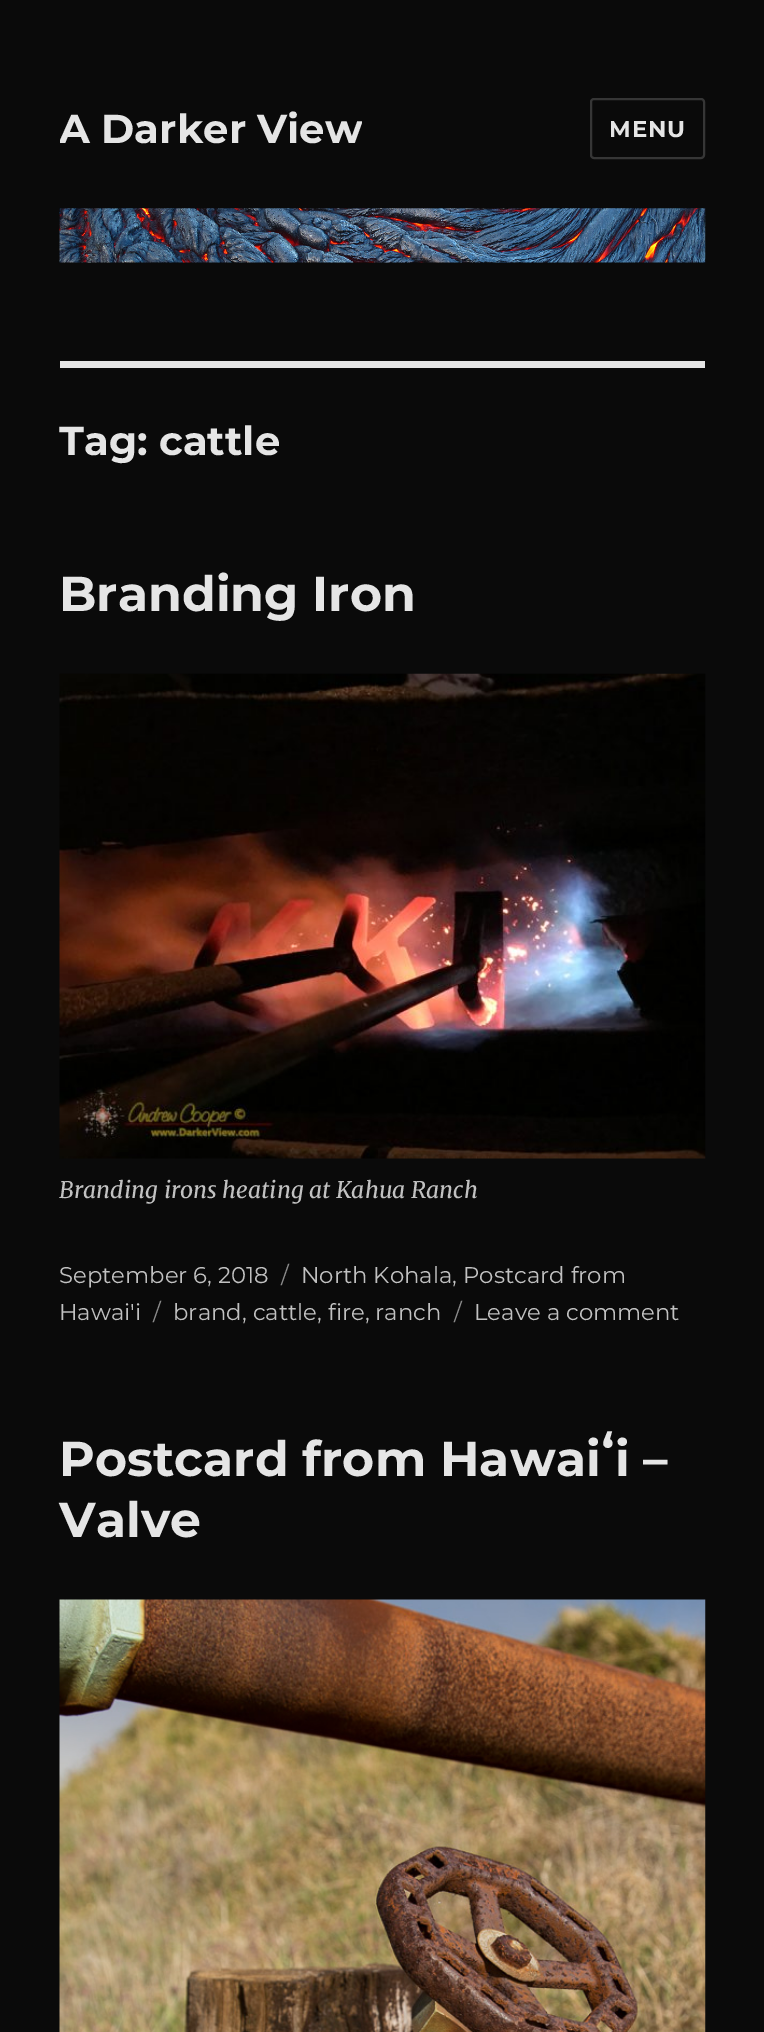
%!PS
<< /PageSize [764 2032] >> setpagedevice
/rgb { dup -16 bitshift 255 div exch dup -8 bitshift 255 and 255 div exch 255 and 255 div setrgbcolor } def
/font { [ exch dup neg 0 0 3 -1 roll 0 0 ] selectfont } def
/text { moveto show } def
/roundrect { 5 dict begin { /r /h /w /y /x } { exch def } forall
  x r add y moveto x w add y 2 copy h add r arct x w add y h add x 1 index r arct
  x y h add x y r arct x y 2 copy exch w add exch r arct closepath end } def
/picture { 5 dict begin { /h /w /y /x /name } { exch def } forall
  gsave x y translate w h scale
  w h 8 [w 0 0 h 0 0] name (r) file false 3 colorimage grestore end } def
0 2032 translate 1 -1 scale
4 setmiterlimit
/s1 { /Montserrat-Thin 40.25 font 16#E5E5E5 rgb } def
/s2 { /Montserrat-Thin 49 font 16#E5E5E5 rgb } def
/s3 { /Merriweather-Italic 22.75 font 16#C1C1C1 rgb } def
/s4 { /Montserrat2-Thin 22.75 font 16#C1C1C1 rgb } def
/s5 { /Montserrat2-Thin 22.75 font 16#8A8A8A rgb } def
16#0A0A0A rgb
0 0 764 2032 rectfill
gsave
60 105 302 49 rectclip
s1
(A Darker View) 59 143 text
grestore
16#363636 rgb
2 setlinewidth
591 99 113 59 3 roundrect stroke
/Montserrat-Thin 22.75 font
16#E5E5E5 rgb
609 137 moveto 1 0 (MENU) ashow
(pic1.raw) 59 208 647 55 picture
60 361 645 7 rectfill
s1
(Tag: cattle) 59 455 text
s2
(Branding Iron) 59 611 text
(pic2.raw) 59 673 647 486 picture
s3
(Branding irons heating at Kahua Ranch) 59 1198 text
s4
(September 6, 2018) 59 1283 text
s5
(/) 281 1283 text
s4
(North Kohala, Postcard from) 301 1283 text
(Hawai'i) 59 1320 text
s5
(/) 153 1320 text
s4
(brand, cattle, fire, ranch) 173 1320 text
s5
(/) 454 1320 text
s4
(Leave a comment) 474 1320 text
s2
(Postcard from Hawaiʻi –) 59 1476 text
(Valve) 59 1537 text
(pic3.raw) 59 1599 647 433 picture
showpage
